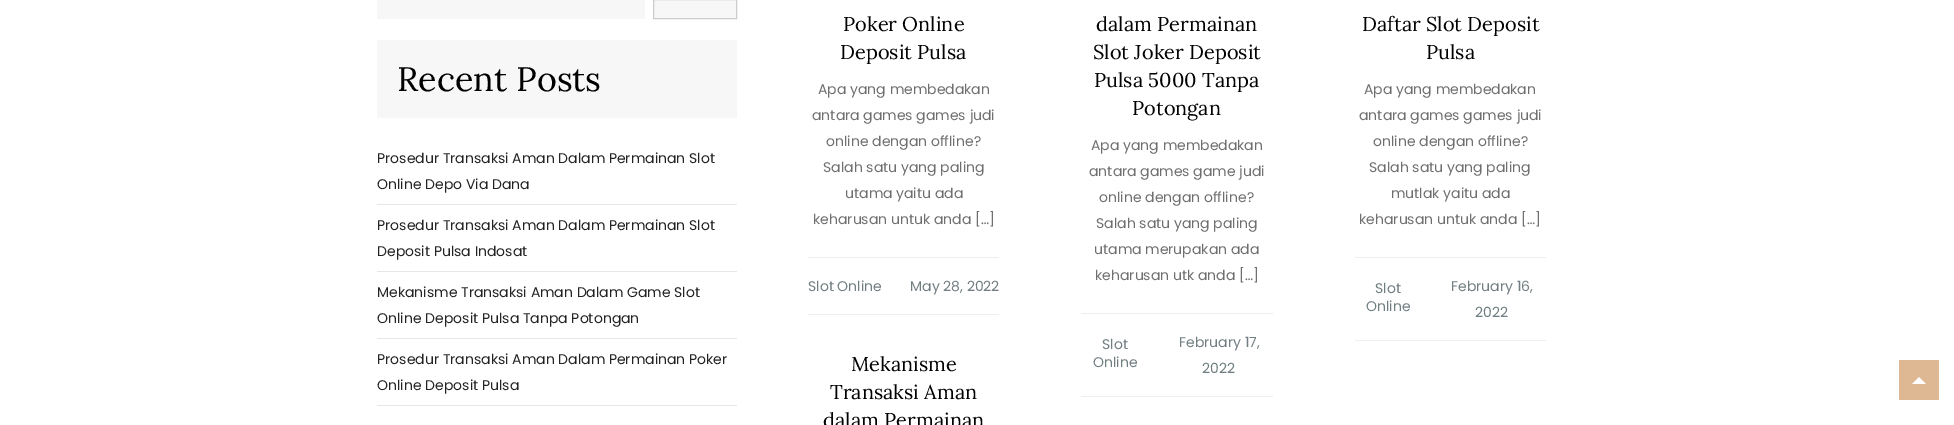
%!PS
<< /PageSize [1954 425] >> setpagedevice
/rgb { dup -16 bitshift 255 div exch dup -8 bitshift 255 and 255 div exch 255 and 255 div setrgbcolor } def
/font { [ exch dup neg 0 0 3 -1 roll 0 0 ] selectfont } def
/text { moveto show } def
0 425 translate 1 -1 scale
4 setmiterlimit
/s1 { /Lora-Regular 34 font 16#000000 rgb } def
/s2 { /Poppins-Regular 14 font 16#232323 rgb } def
/s3 { /Lora-Regular 20 font 16#000000 rgb } def
/s4 { /Poppins-Regular 14 font 16#6F6F6F rgb } def
/s5 { /Poppins-Regular 14 font 16#717E81 rgb } def
16#FFFFFF rgb
0 0 1954 425 rectfill
16#F7F7F7 rgb
377 0 268 19 rectfill
653.5 -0.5 moveto 736.5 -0.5 lineto 736.5 18.5 lineto 653.5 18.5 lineto closepath gsave fill grestore
16#CCCCCC rgb
stroke
16#F7F7F7 rgb
377 40 360 78 rectfill
s1
(Recent Posts) 397 91 text
16#E7E7E7 rgb
377 204 360 1 rectfill
s2
(Prosedur Transaksi Aman Dalam Permainan Slot) 377 163 text
(Online Depo Via Dana) 377 189 text
16#E7E7E7 rgb
377 271 360 1 rectfill
s2
(Prosedur Transaksi Aman Dalam Permainan Slot) 377 230 text
(Deposit Pulsa Indosat) 377 256 text
16#E7E7E7 rgb
377 338 360 1 rectfill
s2
(Mekanisme Transaksi Aman Dalam Game Slot) 377 297 text
(Online Deposit Pulsa Tanpa Potongan) 377 323 text
16#E7E7E7 rgb
377 405 360 1 rectfill
s2
(Prosedur Transaksi Aman Dalam Permainan Poker) 377 364 text
(Online Deposit Pulsa) 377 390 text
s3
(Poker Online) 843 31 text
(Deposit Pulsa) 840 59 text
s4
(Apa yang membedakan) 818 94 text
(antara games games judi) 812 120 text
(online dengan offline?) 826 146 text
(Salah satu yang paling) 823 172 text
(utama yaitu ada) 845 198 text
(keharusan untuk anda […]) 813 224 text
16#EEEEEE rgb
808 257 191 1 rectfill
808 314 191 1 rectfill
s5
(Slot Online) 808 291 text
(May 28, 2022) 910 291 text
s3
(dalam Permainan) 1096 31 text
(Slot Joker Deposit) 1093 59 text
(Pulsa 5000 Tanpa) 1094 87 text
(Potongan) 1132 115 text
s4
(Apa yang membedakan) 1091 150 text
(antara games game judi) 1089 176 text
(online dengan offline?) 1099 202 text
(Salah satu yang paling) 1096 228 text
(utama merupakan ada) 1094 254 text
(keharusan utk anda […]) 1095 280 text
16#EEEEEE rgb
1081 313 192 1 rectfill
1081 396 192 1 rectfill
s5
(Slot) 1102 349 text
(Online) 1093 367 text
(February 17,) 1179 347 text
(2022) 1202 373 text
s3
(Daftar Slot Deposit) 1362 31 text
(Pulsa) 1426 59 text
s4
(Apa yang membedakan) 1364 94 text
(antara games games judi) 1359 120 text
(online dengan offline?) 1373 146 text
(Salah satu yang paling) 1369 172 text
(mutlak yaitu ada) 1391 198 text
(keharusan untuk anda […]) 1359 224 text
16#EEEEEE rgb
1355 257 191 1 rectfill
1355 340 191 1 rectfill
s5
(Slot) 1375 293 text
(Online) 1366 311 text
(February 16,) 1451 291 text
(2022) 1475 317 text
s3
(Mekanisme) 851 371 text
(Transaksi Aman) 830 399 text
(dalam Permainan) 823 427 text
16#DDB892 rgb
1899 360 40 40 rectfill
16#FFFFFF rgb
1926 384 moveto 1912 384 lineto 1919 377 lineto closepath fill
showpage
